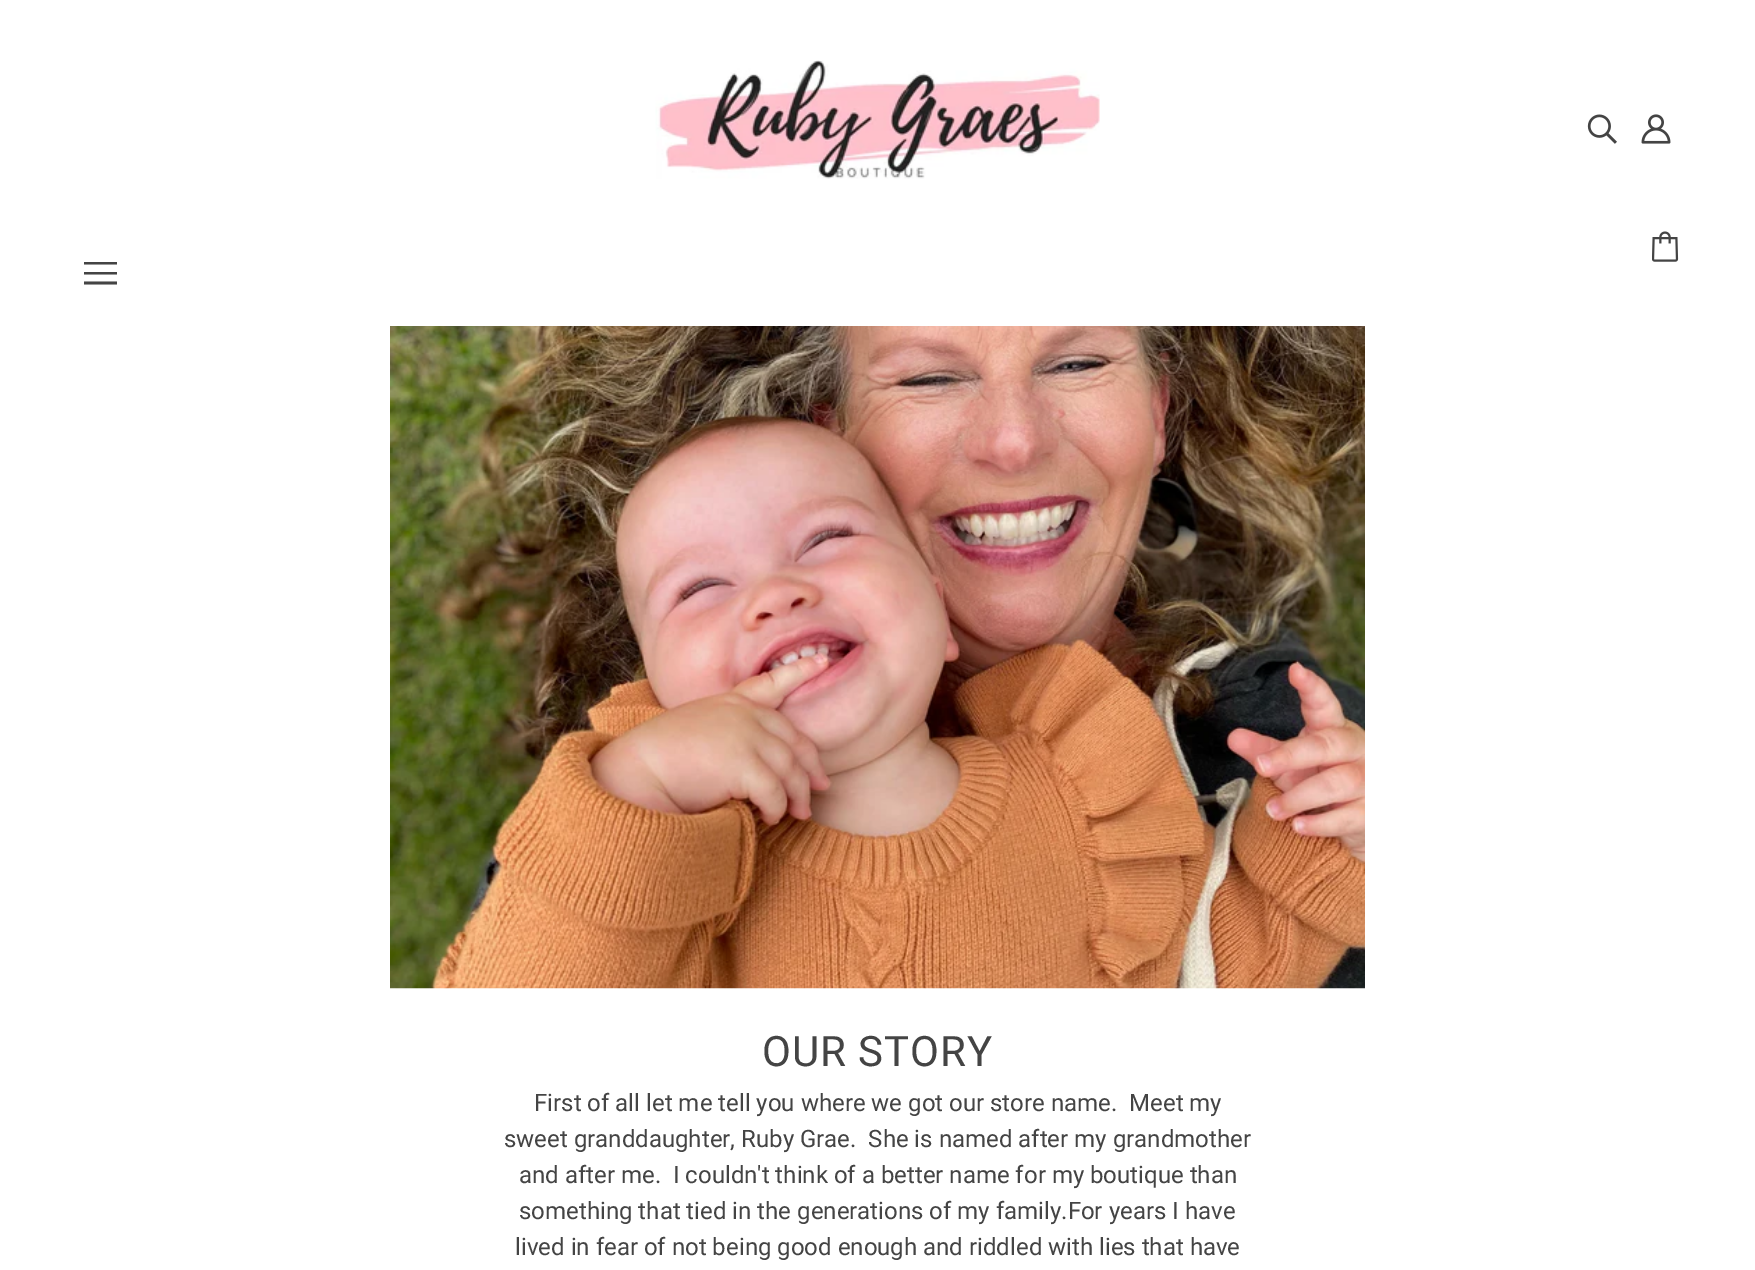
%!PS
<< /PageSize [1755 1270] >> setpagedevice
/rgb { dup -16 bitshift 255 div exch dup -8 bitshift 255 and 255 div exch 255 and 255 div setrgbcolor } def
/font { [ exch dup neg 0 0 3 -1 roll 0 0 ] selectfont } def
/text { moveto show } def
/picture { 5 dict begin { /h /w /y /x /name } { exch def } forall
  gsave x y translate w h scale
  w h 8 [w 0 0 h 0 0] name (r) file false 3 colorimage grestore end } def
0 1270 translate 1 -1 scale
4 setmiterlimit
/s1 { /Roboto-Regular 24 font 16#444444 rgb } def
16#FFFFFF rgb
0 0 1755 1270 rectfill
(pic1.raw) 655 60 445 119 picture
(pic2.raw) 1587 114 30 30 picture
(pic3.raw) 1641 114 30 30 picture
(pic4.raw) 1652 231 27 31 picture
16#444444 rgb
84 264.5 moveto 84 262 lineto 117 262 lineto 117 264.5 lineto closepath 84 274.5 moveto 84 272 lineto 117 272 lineto 117 274.5 lineto closepath 84 284.5 moveto 84 281.5 lineto 117 281.5 lineto 117 284.5 lineto closepath fill
(pic5.raw) 390 326 975 663 picture
/Roboto-Regular 42 font
762 1066 moveto 1 0 (OUR STORY) ashow
s1
(First of all let me tell you where we got our store name.  Meet my) 534 1111 text
(sweet granddaughter, Ruby Grae.  She is named after my grandmother) 504 1147 text
(and after me.  I couldn't think of a better name for my boutique than) 519 1183 text
(something that tied in the generations of my family.For years I have) 519 1219 text
(lived in fear of not being good enough and riddled with lies that have) 515 1255 text
showpage
